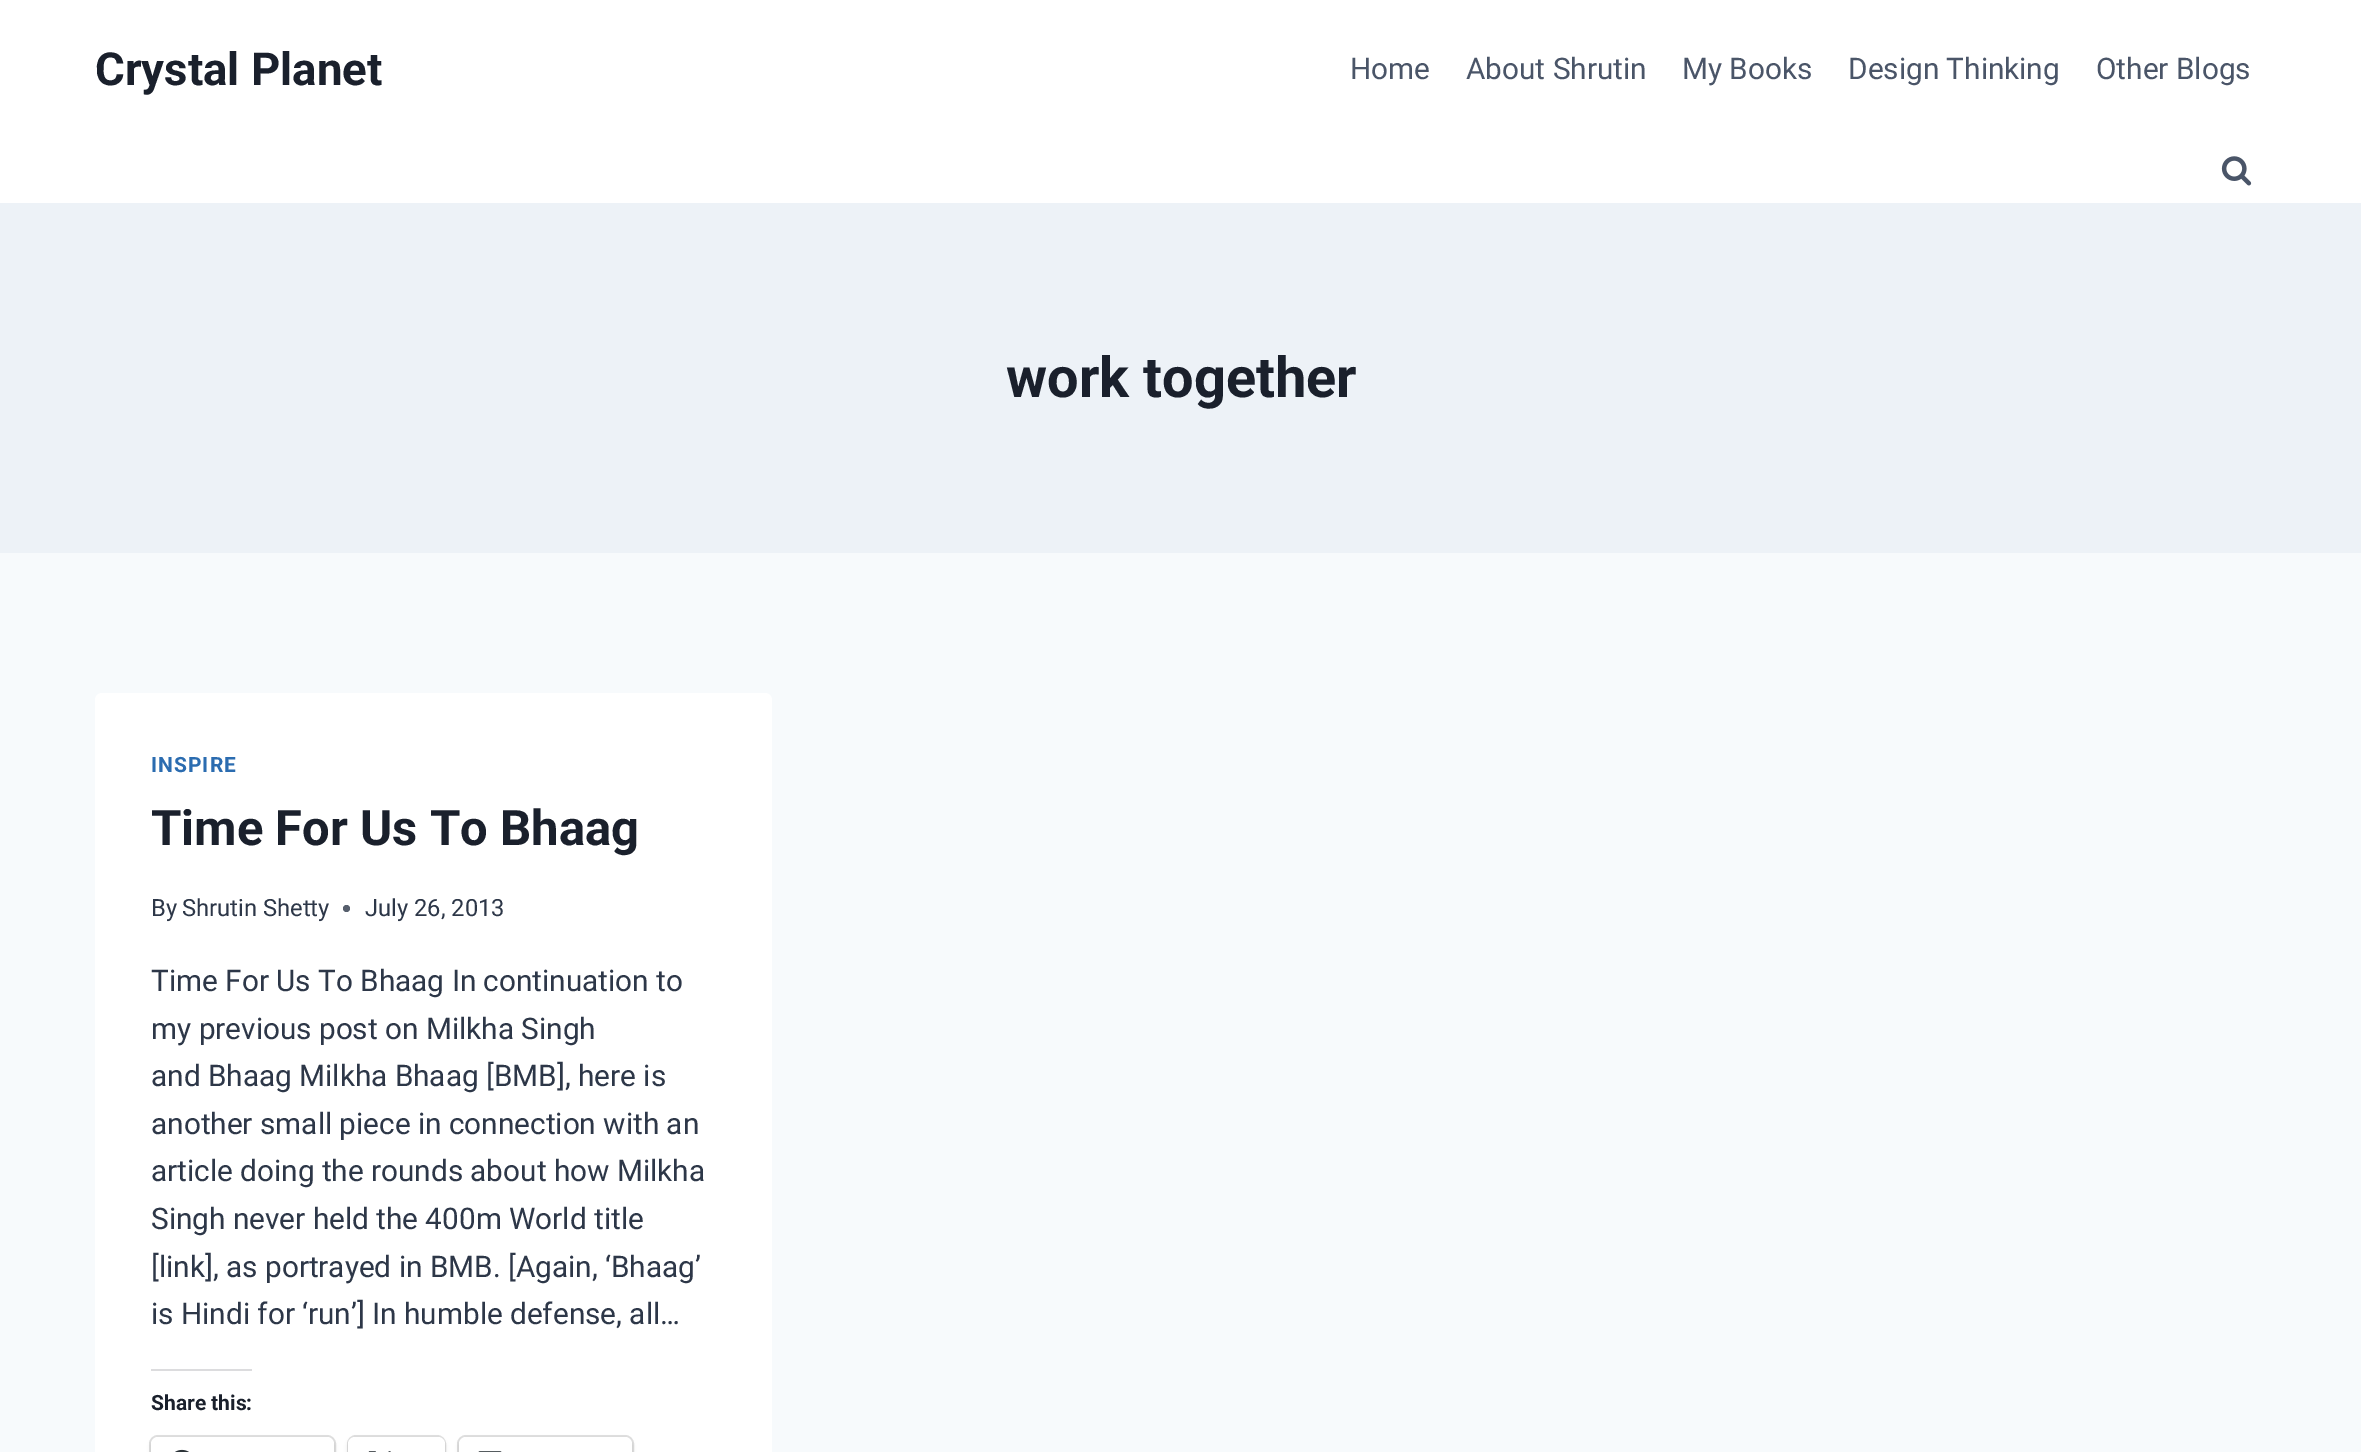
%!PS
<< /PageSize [2361 1452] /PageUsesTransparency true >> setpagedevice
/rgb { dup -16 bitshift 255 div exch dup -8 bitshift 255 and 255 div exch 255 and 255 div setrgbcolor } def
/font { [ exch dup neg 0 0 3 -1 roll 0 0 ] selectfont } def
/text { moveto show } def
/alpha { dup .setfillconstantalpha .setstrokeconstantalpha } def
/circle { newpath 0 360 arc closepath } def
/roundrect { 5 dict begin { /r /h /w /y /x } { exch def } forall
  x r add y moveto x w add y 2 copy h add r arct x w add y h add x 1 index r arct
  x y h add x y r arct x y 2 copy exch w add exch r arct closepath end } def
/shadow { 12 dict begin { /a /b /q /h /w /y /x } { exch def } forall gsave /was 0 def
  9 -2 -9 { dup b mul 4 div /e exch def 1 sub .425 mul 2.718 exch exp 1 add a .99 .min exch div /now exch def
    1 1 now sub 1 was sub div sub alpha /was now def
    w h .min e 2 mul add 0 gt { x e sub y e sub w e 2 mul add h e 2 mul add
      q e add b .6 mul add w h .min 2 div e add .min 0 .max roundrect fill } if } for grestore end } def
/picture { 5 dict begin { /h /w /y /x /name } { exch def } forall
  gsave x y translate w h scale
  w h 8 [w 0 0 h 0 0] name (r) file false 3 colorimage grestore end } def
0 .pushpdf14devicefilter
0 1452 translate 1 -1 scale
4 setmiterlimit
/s1 { /Roboto-Bold 45.5 font 16#1A202C rgb } def
/s2 { /Roboto-Regular 29.75 font 16#4A5568 rgb } def
/s3 { /Roboto-Bold 56 font 16#1A202C rgb } def
/s4 { /Roboto-Bold 49 font 16#1A202C rgb } def
/s5 { /Roboto-Regular 23.75 font 16#2D3748 rgb } def
/s6 { /Roboto-Regular 29.75 font 16#2D3748 rgb } def
/s7 { /Roboto-Bold 21 font 16#1A202C rgb } def
16#F7FAFC rgb
0 0 2361 1452 rectfill
16#FFFFFF rgb
0 0 2361 203 rectfill
s1
(Crystal Planet) 95 85 text
s2
(Home) 1350 79 text
(About Shrutin) 1466 79 text
(My Books) 1682 79 text
(Design Thinking) 1848 79 text
(Other Blogs) 2096 79 text
(pic1.raw) 2221 156 31 30 picture
16#EDF2F7 rgb
0 203 2361 350 rectfill
s3
(work together) 1006 397 text
16#FFFFFF rgb
95 693 677 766 7 roundrect fill
/Roboto-Bold 21 font
16#2B6CB0 rgb
151 772 moveto 1 0 (INSPIRE) ashow
s4
(Time For Us To Bhaag) 151 845 text
s5
(By) 151 916 text
(Shrutin Shetty) 182 916 text
16#575F6D rgb
346.5 908.5 3.5 circle fill
s5
(July 26, 2013) 365 916 text
s6
(Time For Us To Bhaag In continuation to) 151 991 text
(my previous post on Milkha Singh) 151 1039 text
(and Bhaag Milkha Bhaag [BMB], here is) 151 1086 text
(another small piece in connection with an) 151 1134 text
(article doing the rounds about how Milkha) 151 1181 text
(Singh never held the 400m World title) 151 1229 text
([link], as portrayed in BMB. [Again, ‘Bhaag’) 151 1277 text
(is Hindi for ‘run’] In humble defense, all…) 151 1324 text
16#DCDCDE rgb
151 1369 101 2 rectfill
s7
(Share this:) 151 1410 text
16#E0E0E0 rgb
2 setlinewidth
150 1436 185 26 8 roundrect stroke
16#000000 rgb
151 1439 183 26 7 2 0.12 shadow
16#FFFFFF rgb
151 1437 183 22 7 roundrect fill
(pic2.raw) 175 1449 14 3 picture
16#E0E0E0 rgb
348 1436 97 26 8 roundrect stroke
16#000000 rgb
348 1439 97 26 7 2 0.12 shadow
16#FFFFFF rgb
348 1437 97 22 7 roundrect fill
(pic3.raw) 368 1451 23 1 picture
16#E0E0E0 rgb
458 1436 175 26 8 roundrect stroke
16#000000 rgb
459 1439 173 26 7 2 0.12 shadow
16#FFFFFF rgb
459 1437 173 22 7 roundrect fill
(pic4.raw) 478 1451 24 1 picture
.poppdf14devicefilter showpage
